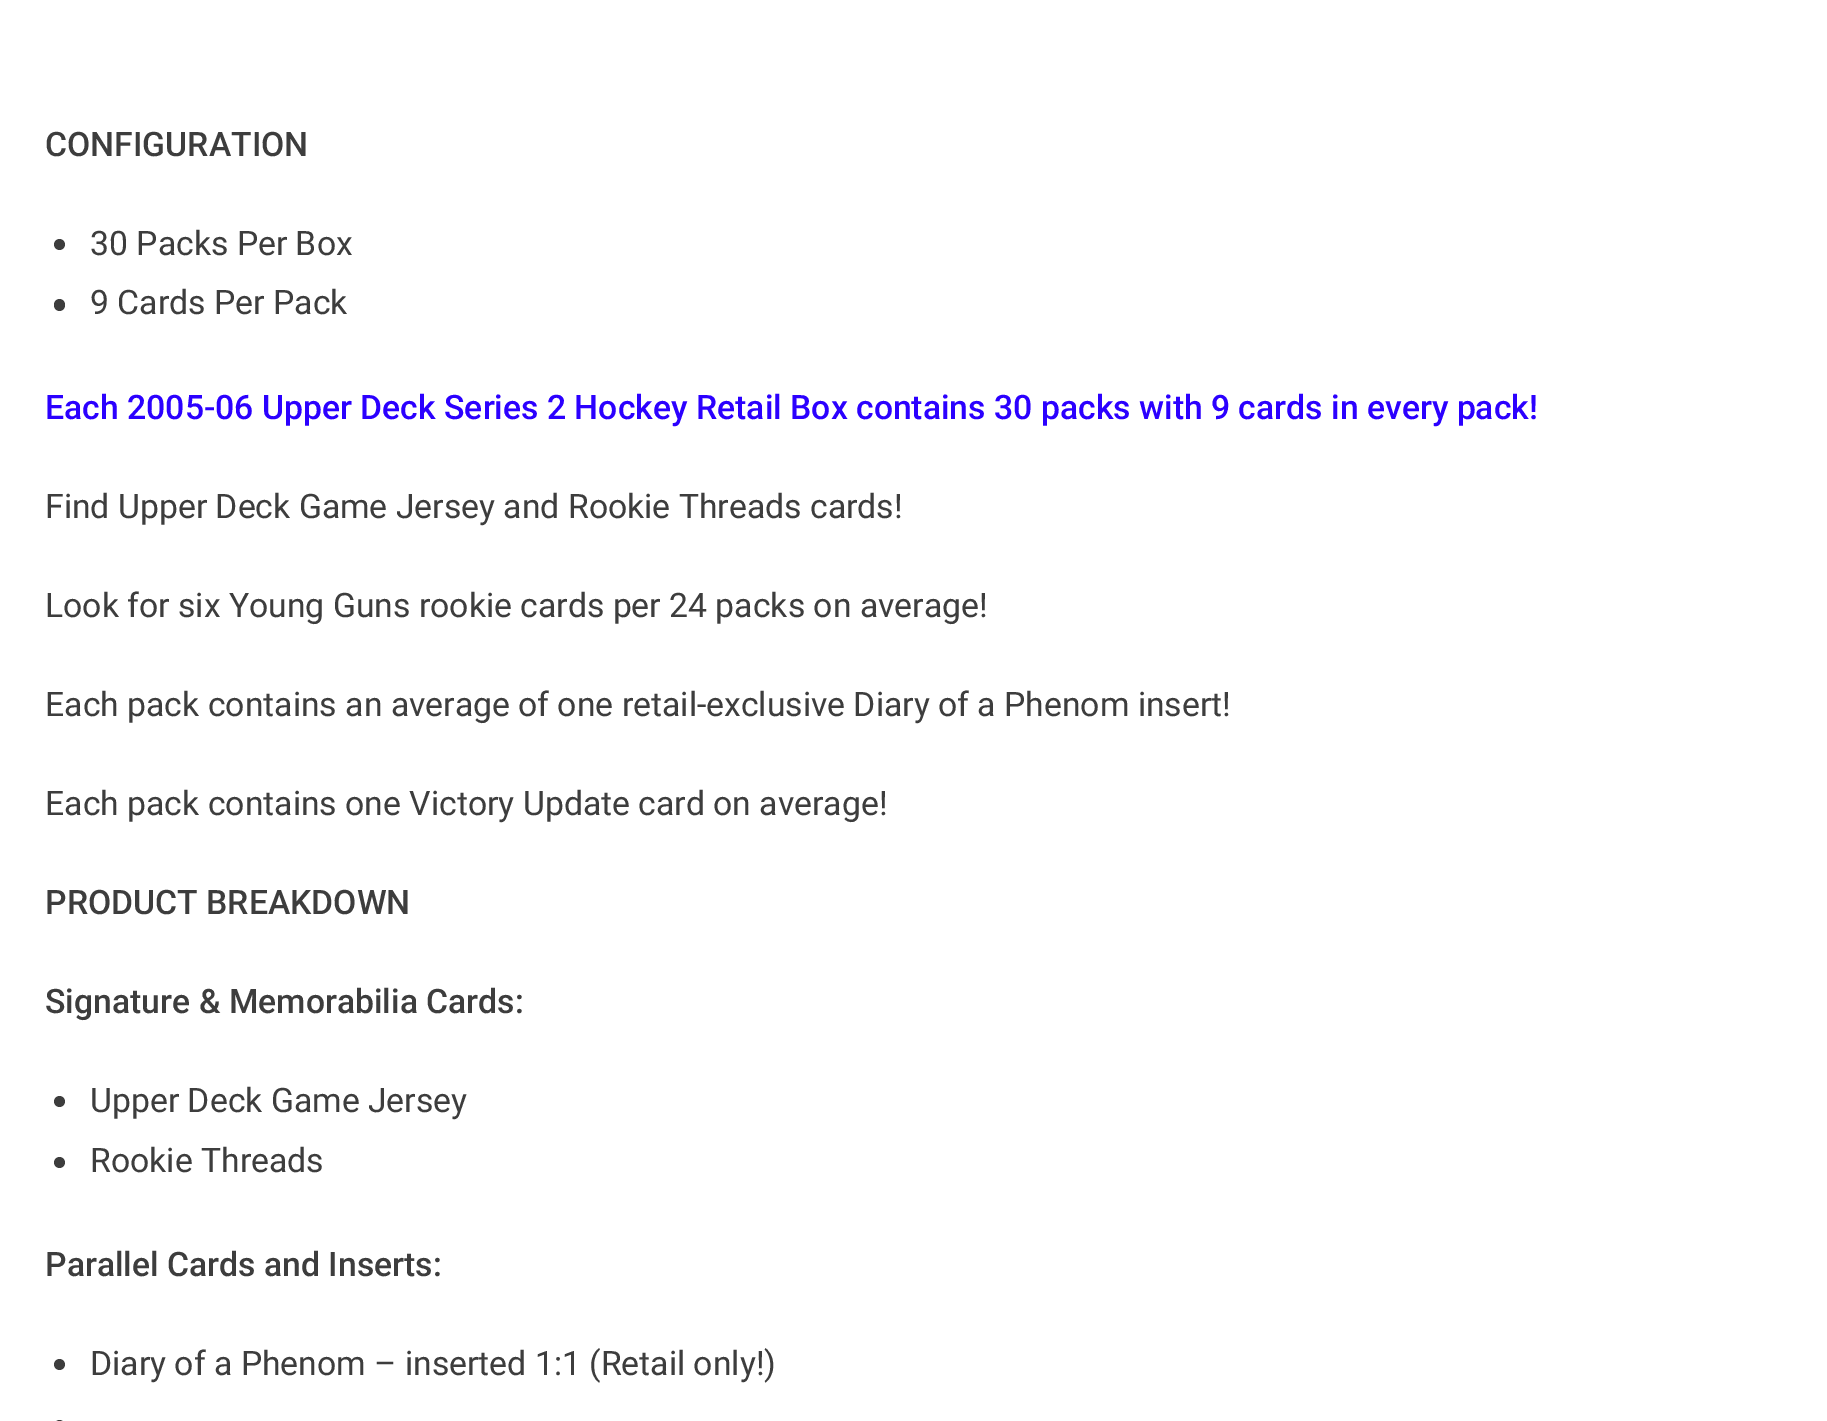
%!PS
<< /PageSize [1827 1421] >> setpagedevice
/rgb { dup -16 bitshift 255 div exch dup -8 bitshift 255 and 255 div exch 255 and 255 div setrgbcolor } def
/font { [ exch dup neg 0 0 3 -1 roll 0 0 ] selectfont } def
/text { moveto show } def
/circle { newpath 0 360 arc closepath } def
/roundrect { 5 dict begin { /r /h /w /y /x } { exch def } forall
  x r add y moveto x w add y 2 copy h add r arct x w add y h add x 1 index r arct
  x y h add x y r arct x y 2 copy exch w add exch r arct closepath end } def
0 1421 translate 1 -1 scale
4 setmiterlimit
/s1 { /Roboto-Medium 33.75 font 16#3D3D3D rgb } def
/s2 { /Roboto-Regular 33.75 font 16#3D3D3D rgb } def
/s3 { /Roboto-Medium 33.75 font 16#2B00FF rgb } def
16#FFFFFF rgb
0 0 1827 1421 rectfill
s1
(CONFIGURATION) 45 156 text
59.5 244.5 5.5 circle fill
s2
(30 Packs Per Box) 90 255 text
54 299 11 12 5.5 roundrect fill
(9 Cards Per Pack) 90 314 text
s3
(Each 2005-06 Upper Deck Series 2 Hockey Retail Box contains 30 packs with 9 cards in every pack!) 45 419 text
s2
(Find Upper Deck Game Jersey and Rookie Threads cards!) 45 518 text
(Look for six Young Guns rookie cards per 24 packs on average!) 45 617 text
(Each pack contains an average of one retail-exclusive Diary of a Phenom insert!) 45 716 text
(Each pack contains one Victory Update card on average!) 45 815 text
s1
(PRODUCT BREAKDOWN) 45 914 text
(Signature & Memorabilia Cards:) 45 1013 text
59.5 1101.5 5.5 circle fill
s2
(Upper Deck Game Jersey) 90 1112 text
59.5 1162.5 5.5 circle fill
(Rookie Threads) 90 1172 text
s1
(Parallel Cards and Inserts:) 45 1276 text
59.5 1364.5 5.5 circle fill
s2
(Diary of a Phenom – inserted 1:1 \(Retail only!\)) 90 1375 text
54 1420 11 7 5.5 roundrect fill
showpage
